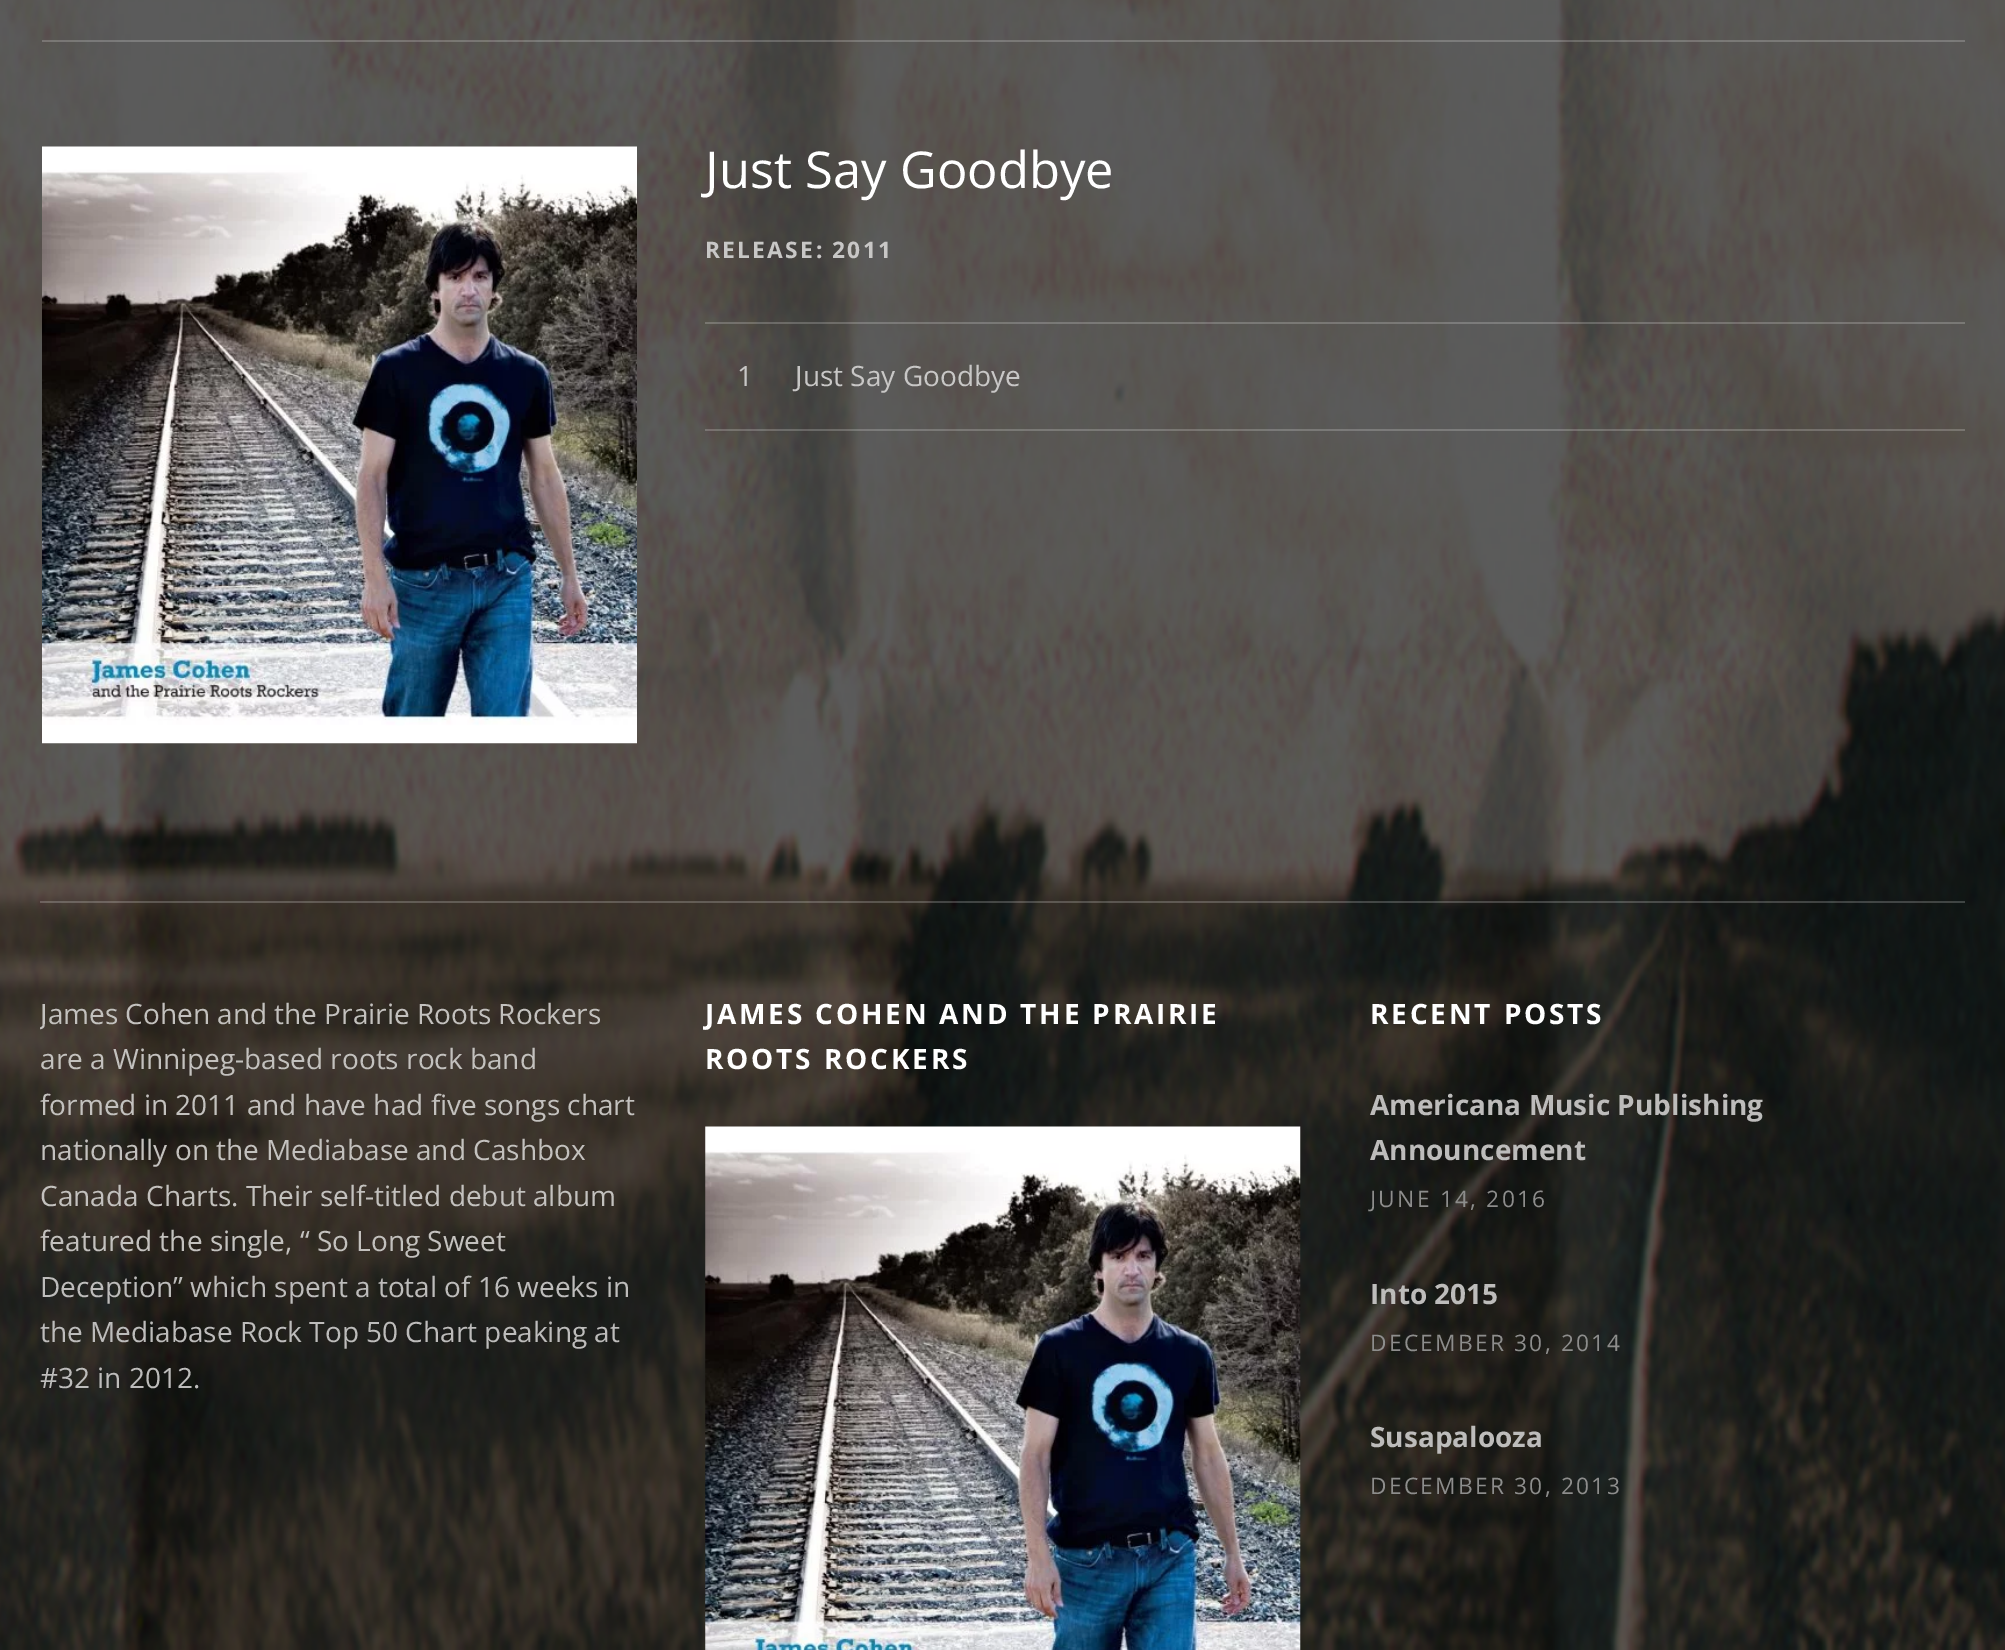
%!PS
<< /PageSize [2005 1650] /PageUsesTransparency true >> setpagedevice
/rgb { dup -16 bitshift 255 div exch dup -8 bitshift 255 and 255 div exch 255 and 255 div setrgbcolor } def
/font { [ exch dup neg 0 0 3 -1 roll 0 0 ] selectfont } def
/text { moveto show } def
/alpha { dup .setfillconstantalpha .setstrokeconstantalpha } def
/picture { 5 dict begin { /h /w /y /x /name } { exch def } forall
  gsave x y translate w h scale
  w h 8 [w 0 0 h 0 0] name (r) file false 3 colorimage grestore end } def
0 .pushpdf14devicefilter
0 1650 translate 1 -1 scale
4 setmiterlimit
/s1 { /OpenSans-Regular 50.75 font 16#FFFFFF rgb } def
/s2 { /OpenSans-Regular 28 font 16#C8C7C6 rgb } def
/s3 { /OpenSans-Regular 28 font 16#C3C1BE rgb } def
/s4 { /OpenSans-Regular 28 font 16#BDBCBB rgb } def
/s5 { /OpenSans-Bold 28 font 16#BDBCBB rgb } def
16#FFFFFF rgb
0 0 2005 1650 rectfill
(pic1.raw) 0 0 2005 1650 picture
0.2 alpha
42 40 1923 2 rectfill
1 alpha
(pic2.raw) 42 146 595 598 picture
s1
(Just Say Goodbye) 705 188 text
/OpenSans-Bold 22.75 font
16#C8C7C6 rgb
705 258 moveto 2.25 0 (RELEASE) ashow
816 258 moveto 2.25 0 (:) ashow
832 258 moveto 2.25 0 (2011) ashow
0.2 alpha
16#FFFFFF rgb
705 322 1260 2 rectfill
705 429 1260 2 rectfill
1 alpha
s2
(1) 737 386 text
(Just Say Goodbye) 795 386 text
0.2 alpha
16#FFFFFF rgb
40 901 1925 2 rectfill
gsave
40 903 1925 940 rectclip
1 alpha
s3
(James Cohen and the Prairie Roots Rockers) 40 1024 text
grestore
1 alpha
s3
(are a Winnipeg-based roots rock band) 40 1069 text
(formed in 2011 and have had five songs chart) 40 1115 text
(nationally on the Mediabase and Cashbox) 40 1160 text
(Canada Charts. Their self-titled debut album) 40 1206 text
(featured the single, “ So Long Sweet) 40 1251 text
s4
(Deception” which spent a total of 16 weeks in) 40 1297 text
(the Mediabase Rock Top 50 Chart peaking at) 40 1342 text
(#32 in 2012.) 40 1388 text
/OpenSans-Bold 28 font
16#FFFFFF rgb
705 1024 moveto 2.8 0 (JAMES COHEN AND THE PRAIRIE) ashow
705 1069 moveto 2.8 0 (ROOTS ROCKERS) ashow
(pic3.raw) 705 1126 596 524 picture
1370 1024 moveto 2.8 0 (RECENT POSTS) ashow
s5
(Americana Music Publishing) 1370 1115 text
(Announcement) 1370 1160 text
/OpenSans-Regular 22.75 font
16#8D8D8C rgb
1370 1207 moveto 2.25 0 (JUNE 14, 2016) ashow
s5
(Into 2015) 1370 1304 text
/OpenSans-Regular 22.75 font
16#8D8D8C rgb
1370 1351 moveto 2.25 0 (DECEMBER 30, 2014) ashow
s5
(Susapalooza) 1370 1447 text
/OpenSans-Regular 22.75 font
16#8D8D8C rgb
1370 1494 moveto 2.25 0 (DECEMBER 30, 2013) ashow
.poppdf14devicefilter showpage
